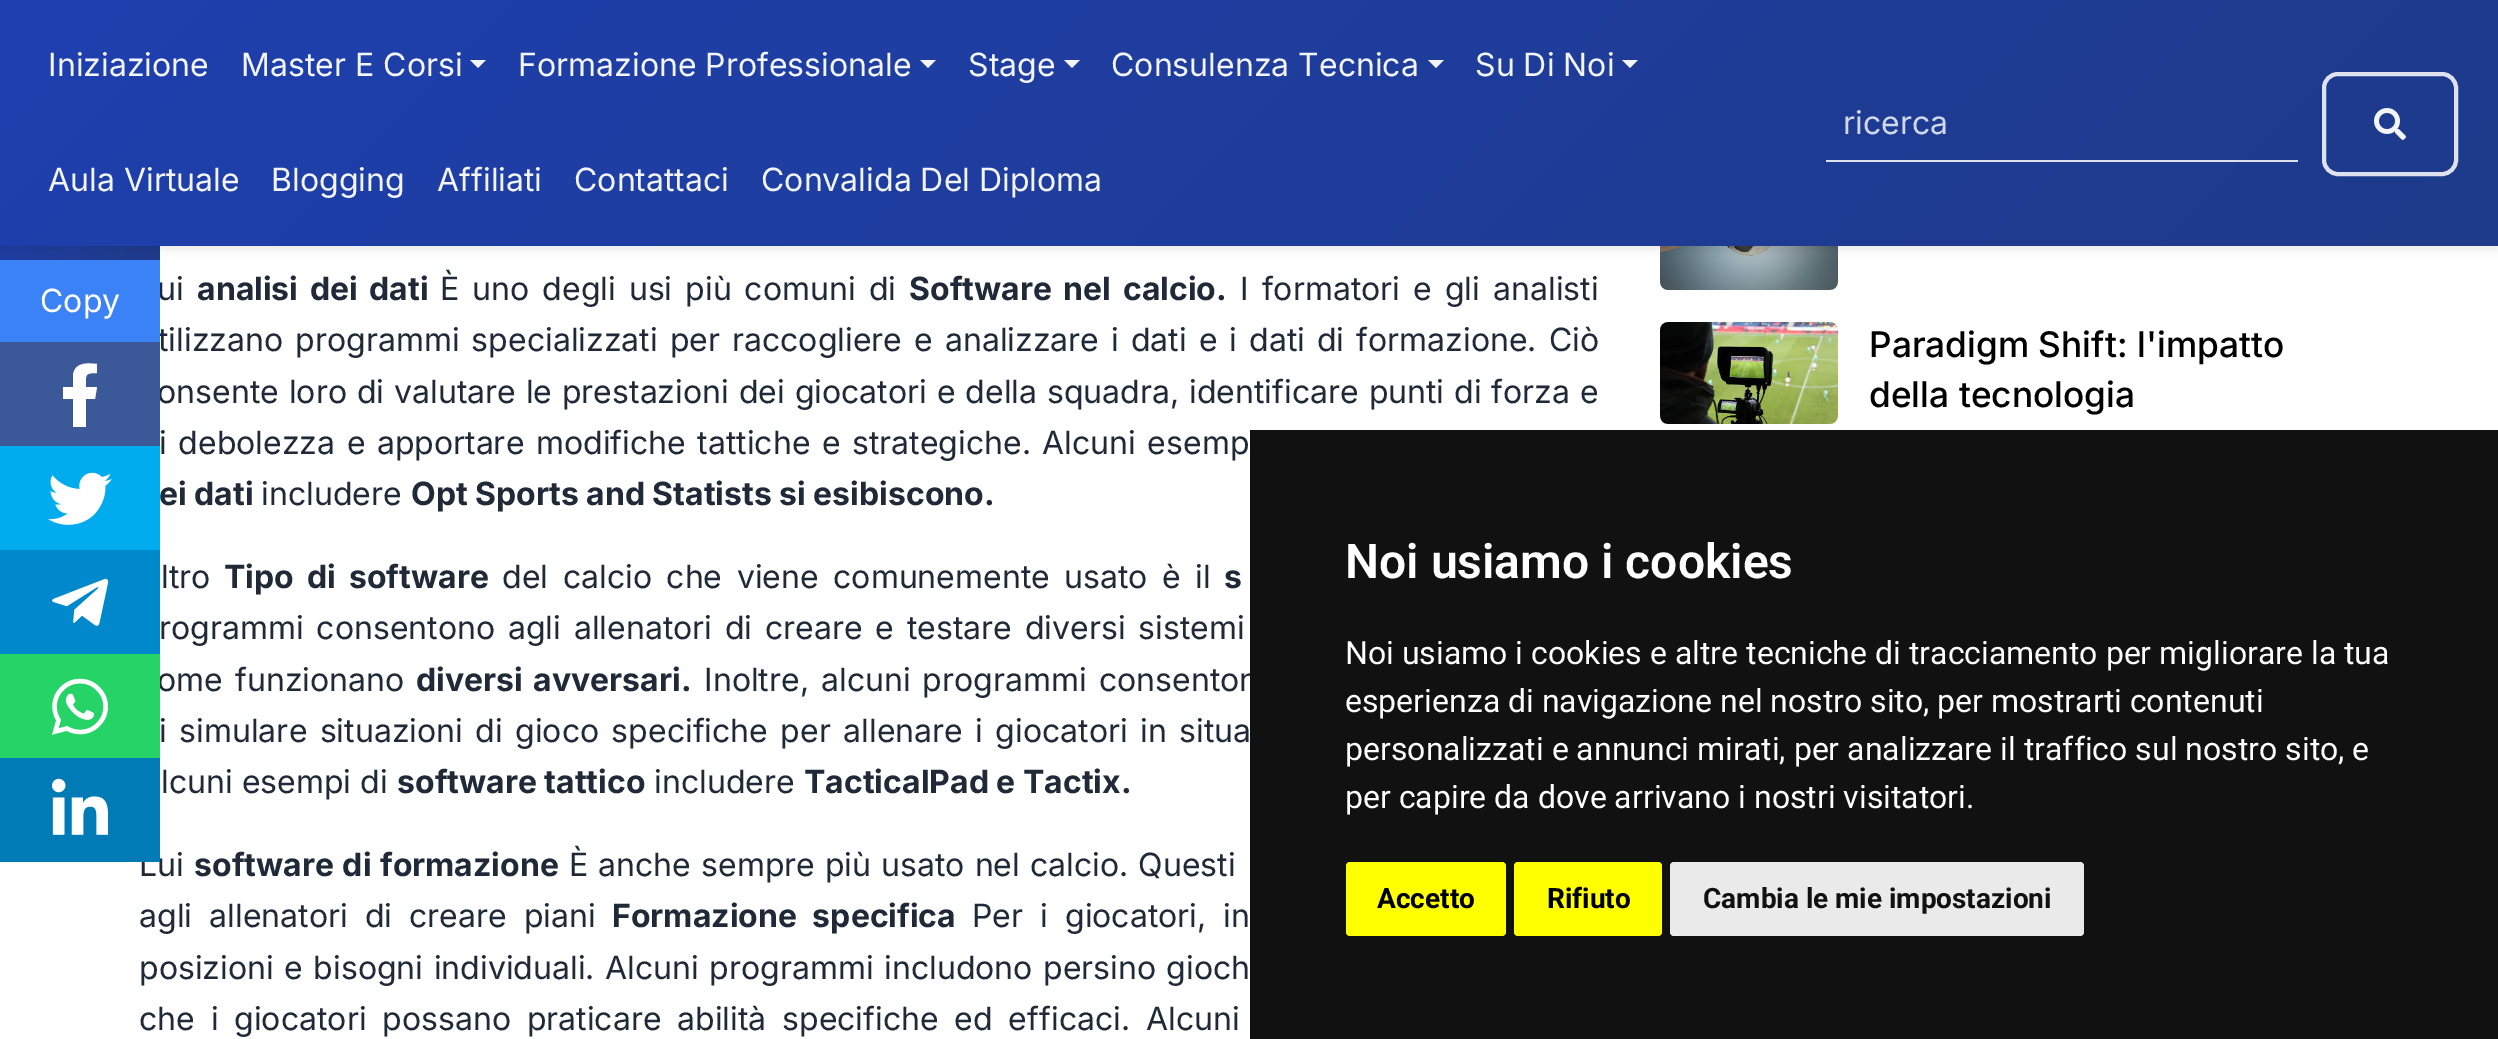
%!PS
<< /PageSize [2498 1039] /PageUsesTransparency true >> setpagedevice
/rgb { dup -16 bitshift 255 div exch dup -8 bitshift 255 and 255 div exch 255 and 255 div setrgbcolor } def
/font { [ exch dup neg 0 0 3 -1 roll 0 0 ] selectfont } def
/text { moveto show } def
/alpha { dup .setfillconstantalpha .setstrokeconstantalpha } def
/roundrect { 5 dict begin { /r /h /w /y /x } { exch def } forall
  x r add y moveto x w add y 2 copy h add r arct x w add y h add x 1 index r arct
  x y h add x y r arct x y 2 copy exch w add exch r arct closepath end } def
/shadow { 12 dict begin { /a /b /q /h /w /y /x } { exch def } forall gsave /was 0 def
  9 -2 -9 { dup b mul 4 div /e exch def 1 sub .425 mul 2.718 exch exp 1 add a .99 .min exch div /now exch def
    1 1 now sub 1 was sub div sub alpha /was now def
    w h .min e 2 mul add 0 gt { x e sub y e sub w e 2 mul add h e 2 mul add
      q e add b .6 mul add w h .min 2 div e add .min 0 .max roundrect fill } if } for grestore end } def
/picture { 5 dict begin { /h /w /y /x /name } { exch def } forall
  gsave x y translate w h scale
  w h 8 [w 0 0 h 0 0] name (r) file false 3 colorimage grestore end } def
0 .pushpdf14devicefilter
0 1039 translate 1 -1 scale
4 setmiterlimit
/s1 { /Inter-Regular 32 font 16#1F2937 rgb } def
/s2 { /Inter-Regular 32 font 16#F4F5FB rgb } def
/s3 { /Inter-Regular 32 font 16#D2D8EA rgb } def
/s4 { /Inter-Regular 32 font 16#FFFFFF rgb } def
/s5 { /Inter-Bold 32 font 16#1F2937 rgb } def
/s6 { /Inter-Medium 35.25 font 16#000000 rgb } def
/s7 { /Roboto-SemiBold 48 font 16#FFFFFF rgb } def
/s8 { /Roboto-Regular 32 font 16#FFFFFF rgb } def
/s9 { /Roboto-Bold 28 font 16#000000 rgb } def
/s10 { /Roboto-Bold 28 font 16#111111 rgb } def
16#FFFFFF rgb
0 0 2498 1039 rectfill
gsave 0 246 moveto 160 246 lineto 160 260 lineto 0 260 lineto closepath clip newpath
<< /ShadingType 2 /ColorSpace /DeviceRGB /Coords [19 158 141 280] /Extend [true true] /Function << /FunctionType 2 /Domain [0 1] /C0 [0.118 0.251 0.686] /C1 [0.118 0.227 0.541] /N 1 >> >> shfill grestore
s1
(ui) 157 300 text
158 351 moveto 3 0 32 (tilizzano programmi specializzati per raccogliere e analizzare i dati e i dati di formazione. Ciò) widthshow
16#3B82F6 rgb
0 260 160 82 rectfill
(pic6.raw) 1660 246 178 44 picture
16#000000 rgb
0 4 2498 246 0 4 0.07 shadow
gsave 0 0 moveto 2498 0 lineto 2498 246 lineto 0 246 lineto closepath clip newpath
<< /ShadingType 2 /ColorSpace /DeviceRGB /Coords [563 -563 1935 809] /Extend [true true] /Function << /FunctionType 2 /Domain [0 1] /C0 [0.118 0.251 0.686] /C1 [0.118 0.227 0.541] /N 1 >> >> shfill grestore
gsave 1826 160 moveto 2298 160 lineto 2298 162 lineto 1826 162 lineto closepath clip newpath
<< /ShadingType 2 /ColorSpace /DeviceRGB /Coords [563 -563 1935 809] /Extend [true true] /Function << /FunctionType 2 /Domain [0 1] /C0 [0.867 0.886 0.953] /C1 [0.867 0.882 0.929] /N 1 >> >> shfill grestore
s2
(Iniziazione) 48 76 text
(Master E Corsi) 241 76 text
470 60 moveto 486 60 lineto 478 68 lineto closepath fill
(Formazione Professionale) 518 76 text
16#F4F5FA rgb
920 60 moveto 936 60 lineto 928 68 lineto closepath fill
s2
(Stage) 968 76 text
16#F4F5FA rgb
1064 60 moveto 1080 60 lineto 1072 68 lineto closepath fill
s2
(Consulenza Tecnica) 1111 76 text
16#F4F5FA rgb
1428 60 moveto 1444 60 lineto 1436 68 lineto closepath fill
s2
(Su Di Noi) 1475 76 text
16#F4F5FA rgb
1622 60 moveto 1638 60 lineto 1630 68 lineto closepath fill
s2
(Aula Virtuale) 48 191 text
(Blogging) 271 191 text
(Affiliati) 437 191 text
(Contattaci) 574 191 text
(Convalida Del Diploma) 761 191 text
s3
(ricerca) 1843 134 text
0.85 alpha
16#FFFFFF rgb
4 setlinewidth
2324 74 132 100 14 roundrect stroke
1 alpha
(pic1.raw) 2374 108 32 32 picture
(Copy) 40 312 text
16#1F2937 rgb
157 403 moveto 0.9 0 32 (onsente loro di valutare le prestazioni dei giocatori e della squadra, identificare punti di forza e) widthshow
16#3B5998 rgb
0 342 160 104 rectfill
16#FFFFFF rgb
95 399 moveto 86 399 lineto 86 427 lineto 73 427 lineto 73 399 lineto 63 399 lineto 63 387 lineto 73 387 lineto 73 375 lineto 75 362 87 363 97 364 curveto 97 373 lineto 84 373 86 375 86 387 curveto 97 387 lineto closepath fill
16#00ACED rgb
0 446 160 104 rectfill
(pic2.raw) 48 472 64 53 picture
16#0088CC rgb
0 550 160 104 rectfill
(pic3.raw) 52 578 57 48 picture
16#1F2937 rgb
157 691 moveto 3 0 32 (ome funzionano) widthshow
16#25D366 rgb
0 654 160 104 rectfill
(pic4.raw) 52 678 56 57 picture
s1
(Lui) 139 876 text
16#007BB6 rgb
0 758 160 104 rectfill
(pic5.raw) 52 778 56 57 picture
/Inter-Bold 32 font
16#1F2937 rgb
197 300 moveto 4 0 32 (analisi dei dati) widthshow
/Inter-Regular 32 font
440 300 moveto 4 0 32 (È uno degli usi più comuni di) widthshow
/Inter-Bold 32 font
909 300 moveto 4 0 32 (Software nel calcio.) widthshow
/Inter-Regular 32 font
1240 300 moveto 4 0 32 (I formatori e gli analisti) widthshow
159 454 moveto 2.5 0 32 (i debolezza e apportare modifiche tattiche e strategiche. Alcuni esemp) widthshow
s5
(ei dati) 159 505 text
s1
(includere) 261 505 text
s5
(Opt Sports and Statists si esibiscono.) 411 505 text
s1
(ltro) 161 588 text
/Inter-Bold 32 font
224 588 moveto 5.5 0 32 (Tipo di software) widthshow
/Inter-Regular 32 font
502 588 moveto 5.5 0 32 (del calcio che viene comunemente usato è il) widthshow
/Inter-Bold 32 font
1224 588 moveto 5.5 0 32 (s) widthshow
/Inter-Regular 32 font
159 639 moveto 3.75 0 32 (rogrammi consentono agli allenatori di creare e testare diversi sistemi) widthshow
/Inter-Bold 32 font
416 691 moveto 3 0 32 (diversi avversari.) widthshow
/Inter-Regular 32 font
704 691 moveto 3 0 32 (Inoltre, alcuni programmi consenton) widthshow
159 742 moveto 3.4 0 32 (i simulare situazioni di gioco specifiche per allenare i giocatori in situa) widthshow
(lcuni esempi di) 161 793 text
s5
(software tattico) 397 793 text
s1
(includere) 654 793 text
s5
(TacticalPad e Tactix.) 804 793 text
194 876 moveto 1 0 32 (software di formazione) widthshow
/Inter-Regular 32 font
569 876 moveto 1 0 32 (È anche sempre più usato nel calcio. Questi) widthshow
139 927 moveto 8 0 32 (agli allenatori di creare piani) widthshow
/Inter-Bold 32 font
612 927 moveto 8 0 32 (Formazione specifica) widthshow
/Inter-Regular 32 font
972 927 moveto 8 0 32 (Per i giocatori, in) widthshow
139 979 moveto 1.5 0 32 (posizioni e bisogni individuali. Alcuni programmi includono persino gioch) widthshow
139 1030 moveto 6.75 0 32 (che i giocatori possano praticare abilità specifiche ed efficaci. Alcuni) widthshow
(pic7.raw) 1660 322 178 102 picture
s6
(Paradigm Shift: l'impatto) 1869 357 text
(della tecnologia) 1869 407 text
16#111111 rgb
1250 430 1248 609 rectfill
s7
(Noi usiamo i cookies) 1345 578 text
s8
(Noi usiamo i cookies e altre tecniche di tracciamento per migliorare la tua) 1345 664 text
(esperienza di navigazione nel nostro sito, per mostrarti contenuti) 1345 712 text
(personalizzati e annunci mirati, per analizzare il traffico sul nostro sito, e) 1345 760 text
(per capire da dove arrivano i nostri visitatori.) 1345 808 text
16#FFFF00 rgb
1346 862 160 74 4 roundrect fill
s9
(Accetto) 1377 908 text
16#FFFF00 rgb
1514 862 148 74 4 roundrect fill
s9
(Rifiuto) 1547 908 text
16#EAEAEA rgb
1670 862 414 74 4 roundrect fill
s10
(Cambia le mie impostazioni) 1703 908 text
.poppdf14devicefilter showpage
